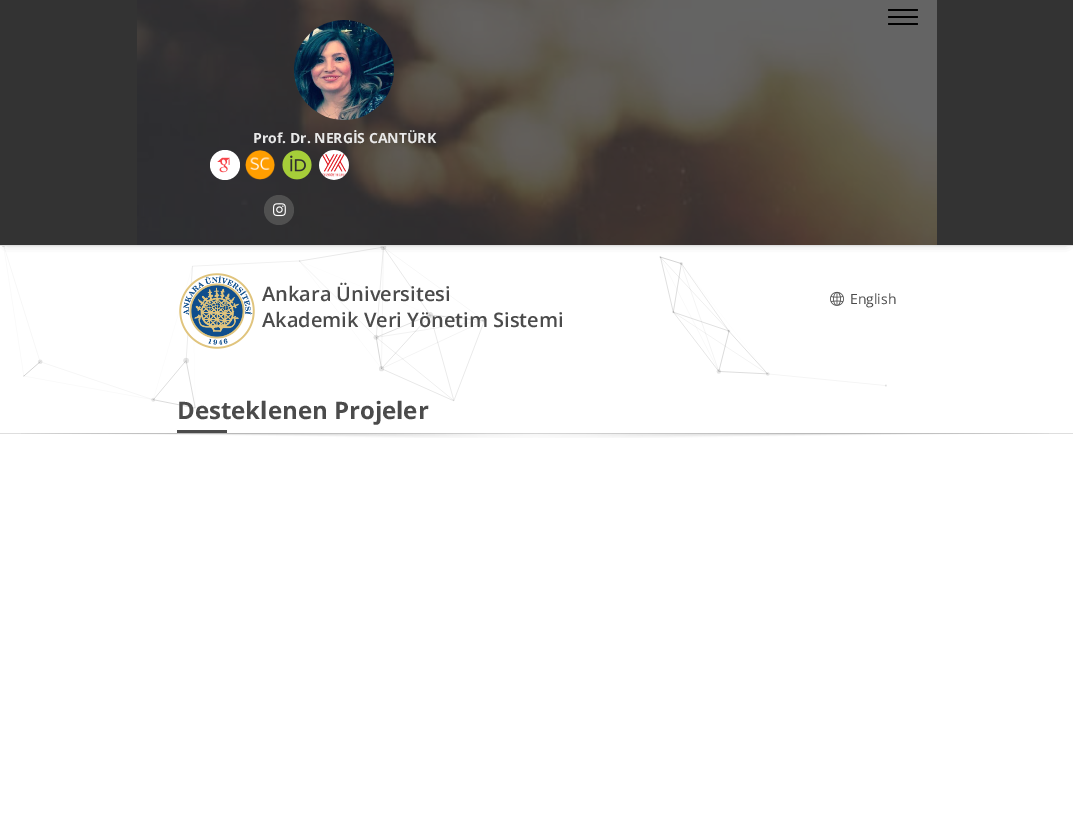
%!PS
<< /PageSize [1073 822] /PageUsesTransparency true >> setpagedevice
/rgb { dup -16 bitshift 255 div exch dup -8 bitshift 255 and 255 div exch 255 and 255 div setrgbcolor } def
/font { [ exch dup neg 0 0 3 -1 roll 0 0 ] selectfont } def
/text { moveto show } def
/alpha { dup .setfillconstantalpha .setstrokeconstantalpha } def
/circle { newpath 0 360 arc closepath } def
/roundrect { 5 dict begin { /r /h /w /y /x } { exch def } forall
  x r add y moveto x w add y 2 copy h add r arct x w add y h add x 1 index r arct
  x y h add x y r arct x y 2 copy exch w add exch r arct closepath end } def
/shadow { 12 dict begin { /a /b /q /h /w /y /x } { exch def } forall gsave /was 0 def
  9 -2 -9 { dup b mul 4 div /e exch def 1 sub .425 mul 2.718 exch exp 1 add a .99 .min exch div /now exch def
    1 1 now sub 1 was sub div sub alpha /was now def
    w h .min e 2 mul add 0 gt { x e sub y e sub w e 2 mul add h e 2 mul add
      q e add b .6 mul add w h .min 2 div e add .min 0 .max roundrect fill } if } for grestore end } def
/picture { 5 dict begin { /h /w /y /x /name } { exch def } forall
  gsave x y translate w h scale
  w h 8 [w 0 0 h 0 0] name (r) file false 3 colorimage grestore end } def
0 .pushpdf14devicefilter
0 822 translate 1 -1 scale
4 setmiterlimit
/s1 { /OpenSans-Bold 14 font 16#E8E8E8 rgb } def
/s2 { /OpenSans-SemiBold 20 font 16#4B4B4B rgb } def
/s3 { /OpenSans-Regular 14 font 16#4B4B4B rgb } def
/s4 { /OpenSans-Bold 24 font 16#4B4B4B rgb } def
16#FFFFFF rgb
0 0 1073 822 rectfill
(pic8.raw) 2 246 885 163 picture
16#000000 rgb
7 9 1059 232 0 5 0.5 shadow
16#333333 rgb
0 0 1073 245 rectfill
16#DEDEDE rgb
0 245 1073 1 rectfill
(pic1.raw) 137 0 800 245 picture
16#000000 rgb
888 9 30 2 1 roundrect fill
888 16 30 2 1 roundrect fill
888 23 30 2 1 roundrect fill
(pic2.raw) 294 20 100 100 picture
s1
(Prof. Dr. NERGİS CANTÜRK) 253 143 text
16#FFFFFF rgb
225 165 15 circle fill
(pic3.raw) 217 157 13 16 picture
(pic4.raw) 245 150 30 30 picture
(pic5.raw) 282 150 30 30 picture
(pic6.raw) 319 150 30 30 picture
16#505050 rgb
279 210 15 circle fill
(pic7.raw) 273 203 13 14 picture
16#DEDEDE rgb
0 433 1073 1 rectfill
(pic9.raw) 179 273 76 76 picture
s2
(Ankara Üniversitesi) 262 301 text
(Akademik Veri Yönetim Sistemi) 262 327 text
(pic10.raw) 830 291 14 15 picture
s3
(English) 850 304 text
s4
(Desteklenen Projeler) 177 419 text
177 430 50 3 rectfill
(pic11.raw) 21 433 1028 5 picture
.poppdf14devicefilter showpage
